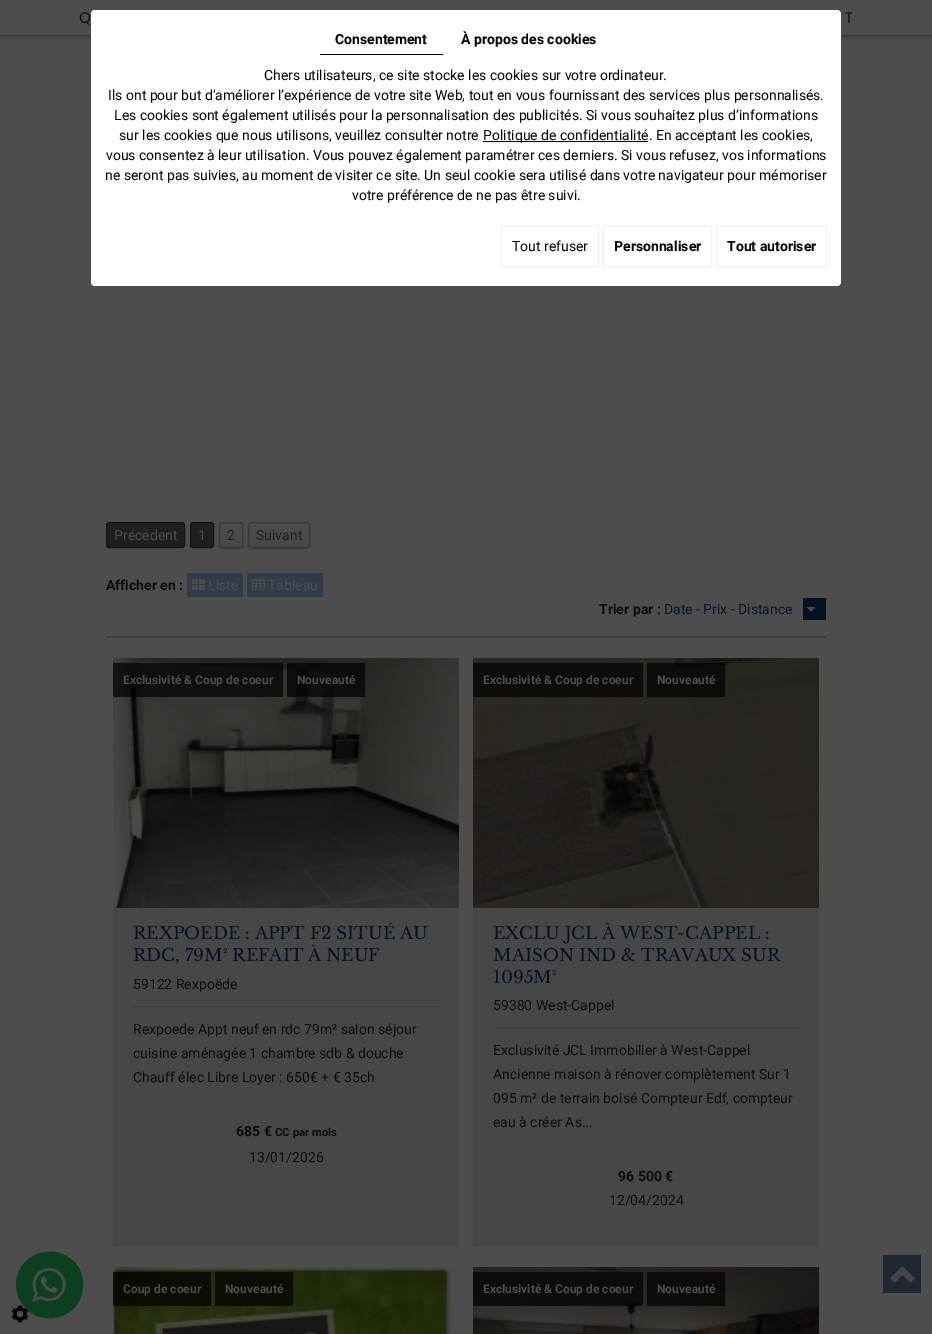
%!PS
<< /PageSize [932 1334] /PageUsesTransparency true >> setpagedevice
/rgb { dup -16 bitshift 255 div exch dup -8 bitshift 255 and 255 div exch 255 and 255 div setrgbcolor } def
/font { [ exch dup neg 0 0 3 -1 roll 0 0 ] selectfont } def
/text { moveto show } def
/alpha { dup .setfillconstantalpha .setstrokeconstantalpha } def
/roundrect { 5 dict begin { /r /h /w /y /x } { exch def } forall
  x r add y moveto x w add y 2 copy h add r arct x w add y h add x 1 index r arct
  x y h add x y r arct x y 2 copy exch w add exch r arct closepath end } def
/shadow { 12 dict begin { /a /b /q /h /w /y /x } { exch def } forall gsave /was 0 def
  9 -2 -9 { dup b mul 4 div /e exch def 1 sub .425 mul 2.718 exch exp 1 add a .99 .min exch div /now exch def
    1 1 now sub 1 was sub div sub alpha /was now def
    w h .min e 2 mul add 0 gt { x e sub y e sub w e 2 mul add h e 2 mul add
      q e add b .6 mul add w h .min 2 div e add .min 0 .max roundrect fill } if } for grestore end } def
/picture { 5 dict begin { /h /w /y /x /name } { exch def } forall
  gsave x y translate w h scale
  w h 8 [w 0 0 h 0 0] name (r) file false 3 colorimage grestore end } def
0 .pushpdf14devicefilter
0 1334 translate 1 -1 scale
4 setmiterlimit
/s1 { /Poppins-Regular 15 font 16#0C0C0C rgb } def
/s2 { /Roboto-Bold 14 font 16#000000 rgb } def
/s3 { /Roboto-Regular 14 font 16#000000 rgb } def
/s4 { /Roboto-Regular 14 font 16#4D4D4D rgb } def
/s5 { /Roboto-Regular 14 font 16#1F1F1F rgb } def
/s6 { /Roboto-Bold 14 font 16#0C0C0C rgb } def
/s7 { /Roboto-Regular 14 font 16#061224 rgb } def
/s8 { /Roboto-Regular 14 font 16#0C0C0C rgb } def
/s9 { /Roboto-Bold 12 font 16#4D4D4D rgb } def
/s10 { /LibreBaskerville-Regular 17 font 16#061224 rgb } def
/s11 { /Roboto-Bold 11.25 font 16#0C0C0C rgb } def
16#4D4D4D rgb
0 0 932 1334 rectfill
16#0C0C0C rgb
0 0 932 35 0 2.5 0.75 shadow
16#4D4D4D rgb
0 0 932 35 rectfill
s1
(Q) 79 23 text
(T) 845 23 text
16#FFFFFF rgb
91 10 750 276 4 roundrect fill
16#000000 rgb
320 54 123 1 rectfill
s2
(Consentement) 335 44 text
(À propos des cookies) 461 44 text
s3
(Chers utilisateurs, ce site stocke les cookies sur votre ordinateur.) 264 80 text
(Ils ont pour but d'améliorer l’expérience de votre site Web, tout en vous fournissant des services plus personnalisés.) 108 100 text
(Les cookies sont également utilisés pour la personnalisation des publicités. Si vous souhaitez plus d’informations) 114 120 text
(sur les cookies que nous utilisons, veuillez consulter notre) 119 140 text
483 141 165 1 rectfill
(Politique de confidentialité. En acceptant les cookies,) 483 140 text
(vous consentez à leur utilisation. Vous pouvez également paramétrer ces derniers. Si vous refusez, vos informations) 106 160 text
(ne seront pas suivies, au moment de visiter ce site. Un seul cookie sera utilisé dans votre navigateur pour mémoriser) 105 180 text
(votre préférence de ne pas être suivi.) 352 200 text
16#F0F0F0 rgb
501.5 225.5 97 41 rectstroke
s3
(Tout refuser) 512 251 text
16#F0F0F0 rgb
603.5 225.5 108 41 rectstroke
s2
(Personnaliser) 614 251 text
16#F0F0F0 rgb
716.5 225.5 110 41 rectstroke
s2
(Tout autoriser) 727 251 text
(pic1.raw) 11 1305 18 18 picture
16#0B3F1F rgb
79 1268 moveto 82 1274 84 1281 83 1287 curveto 81 1320 37 1330 21 1302 curveto 17 1296 16 1289 16 1283 curveto 18 1250 62 1240 79 1268 curveto closepath fill
(pic2.raw) 32 1268 34 34 picture
16#1F1F1F rgb
106.5 522.5 78 25 2.5 roundrect gsave fill grestore
16#141414 rgb
stroke
s4
(Précédent) 114 540 text
16#1F1F1F rgb
190.5 522.5 23 25 2.5 roundrect gsave fill grestore
16#141414 rgb
stroke
s4
(1) 198 540 text
16#000000 rgb
219 523 24 26 3 1 0.2 shadow
gsave
219 522 24 26 3 roundrect clip newpath
gsave 219 523 moveto 243 523 lineto 243 547 lineto 219 547 lineto closepath clip newpath
<< /ShadingType 2 /ColorSpace /DeviceRGB /Coords [231 523 231 547] /Extend [true true] /Function << /FunctionType 2 /Domain [0 1] /C0 [0.302 0.302 0.302] /C1 [0.282 0.282 0.282] /N 1 >> >> shfill grestore
grestore
16#383838 rgb
219.5 522.5 23 25 2.5 roundrect stroke
s5
(2) 227 540 text
16#000000 rgb
248 523 62 26 3 1 0.2 shadow
gsave
248 522 62 26 3 roundrect clip newpath
gsave 248 523 moveto 310 523 lineto 310 547 lineto 248 547 lineto closepath clip newpath
<< /ShadingType 2 /ColorSpace /DeviceRGB /Coords [279 523 279 547] /Extend [true true] /Function << /FunctionType 2 /Domain [0 1] /C0 [0.302 0.302 0.302] /C1 [0.282 0.282 0.282] /N 1 >> >> shfill grestore
grestore
16#383838 rgb
248.5 522.5 61 25 2.5 roundrect stroke
s5
(Suivant) 256 540 text
16#3D3D3D rgb
106 636 720 2 rectfill
s6
(Afficher en :) 106 590 text
16#313B49 rgb
187 573 56 24 rectfill
(pic3.raw) 192 579 13 11 picture
s4
(Liste) 208 590 text
16#313B49 rgb
247 573 76 24 rectfill
(pic4.raw) 252 579 13 11 picture
s4
(Tableau) 268 590 text
s6
(Trier par :) 599 614 text
s7
(Date) 664 614 text
(Prix) 703 614 text
(Distance) 738 614 text
803 598 16 22 rectfill
16#01151E rgb
819 598 7 22 rectfill
s8
(-) 696 614 text
(-) 731 614 text
(pic5.raw) 807 607 8 5 picture
16#474747 rgb
113 908 346 339 rectfill
(pic6.raw) 113 658 346 250 picture
0.7 alpha
16#000000 rgb
113 663 170 34 rectfill
1 alpha
s9
(Exclusivité & Coup de coeur) 123 684 text
0.7 alpha
16#000000 rgb
287 663 78 34 rectfill
1 alpha
s9
(Nouveauté) 297 684 text
s10
(REXPOEDE : APPT F2 SITUÉ AU) 133 939 text
(RDC, 79M² REFAIT À NEUF) 133 961 text
16#3D3D3D rgb
133 1006 306 1 rectfill
s8
(59122 Rexpoëde) 133 989 text
(Rexpoede Appt neuf en rdc 79m² salon séjour) 133 1034 text
(cuisine aménagée 1 chambre sdb & douche) 133 1058 text
(Chauff élec Libre Loyer : 650€ + € 35ch) 133 1082 text
s6
(685 €) 236 1136 text
s11
(CC par mois) 275 1136 text
s8
(13/01/2026) 249 1162 text
16#474747 rgb
473 908 346 339 rectfill
(pic7.raw) 473 658 346 250 picture
0.7 alpha
16#000000 rgb
473 663 170 34 rectfill
1 alpha
s9
(Exclusivité & Coup de coeur) 483 684 text
0.7 alpha
16#000000 rgb
647 663 78 34 rectfill
1 alpha
s9
(Nouveauté) 657 684 text
s10
(EXCLU JCL À WEST-CAPPEL :) 493 939 text
(MAISON IND & TRAVAUX SUR) 493 961 text
(1095M²) 493 983 text
16#3D3D3D rgb
493 1027 306 1 rectfill
s8
(59380 West-Cappel) 493 1010 text
(Exclusivité JCL Immobilier à West-Cappel) 493 1055 text
(Ancienne maison à rénover complètement Sur 1) 493 1079 text
(095 m² de terrain boisé Compteur Edf, compteur) 493 1103 text
(eau à créer As...) 493 1127 text
s6
(96 500 €) 618 1181 text
s8
(12/04/2024) 609 1205 text
(pic8.raw) 113 1267 346 67 picture
0.7 alpha
16#000000 rgb
113 1272 98 34 rectfill
1 alpha
s9
(Coup de coeur) 123 1293 text
0.7 alpha
16#000000 rgb
215 1272 78 34 rectfill
1 alpha
s9
(Nouveauté) 225 1293 text
(pic9.raw) 473 1267 346 67 picture
0.7 alpha
16#000000 rgb
473 1272 170 34 rectfill
1 alpha
s9
(Exclusivité & Coup de coeur) 483 1293 text
0.7 alpha
16#000000 rgb
647 1272 78 34 rectfill
1 alpha
s9
(Nouveauté) 657 1293 text
16#1F2733 rgb
883 1255 38 38 rectfill
(pic10.raw) 890 1266 25 17 picture
.poppdf14devicefilter showpage
